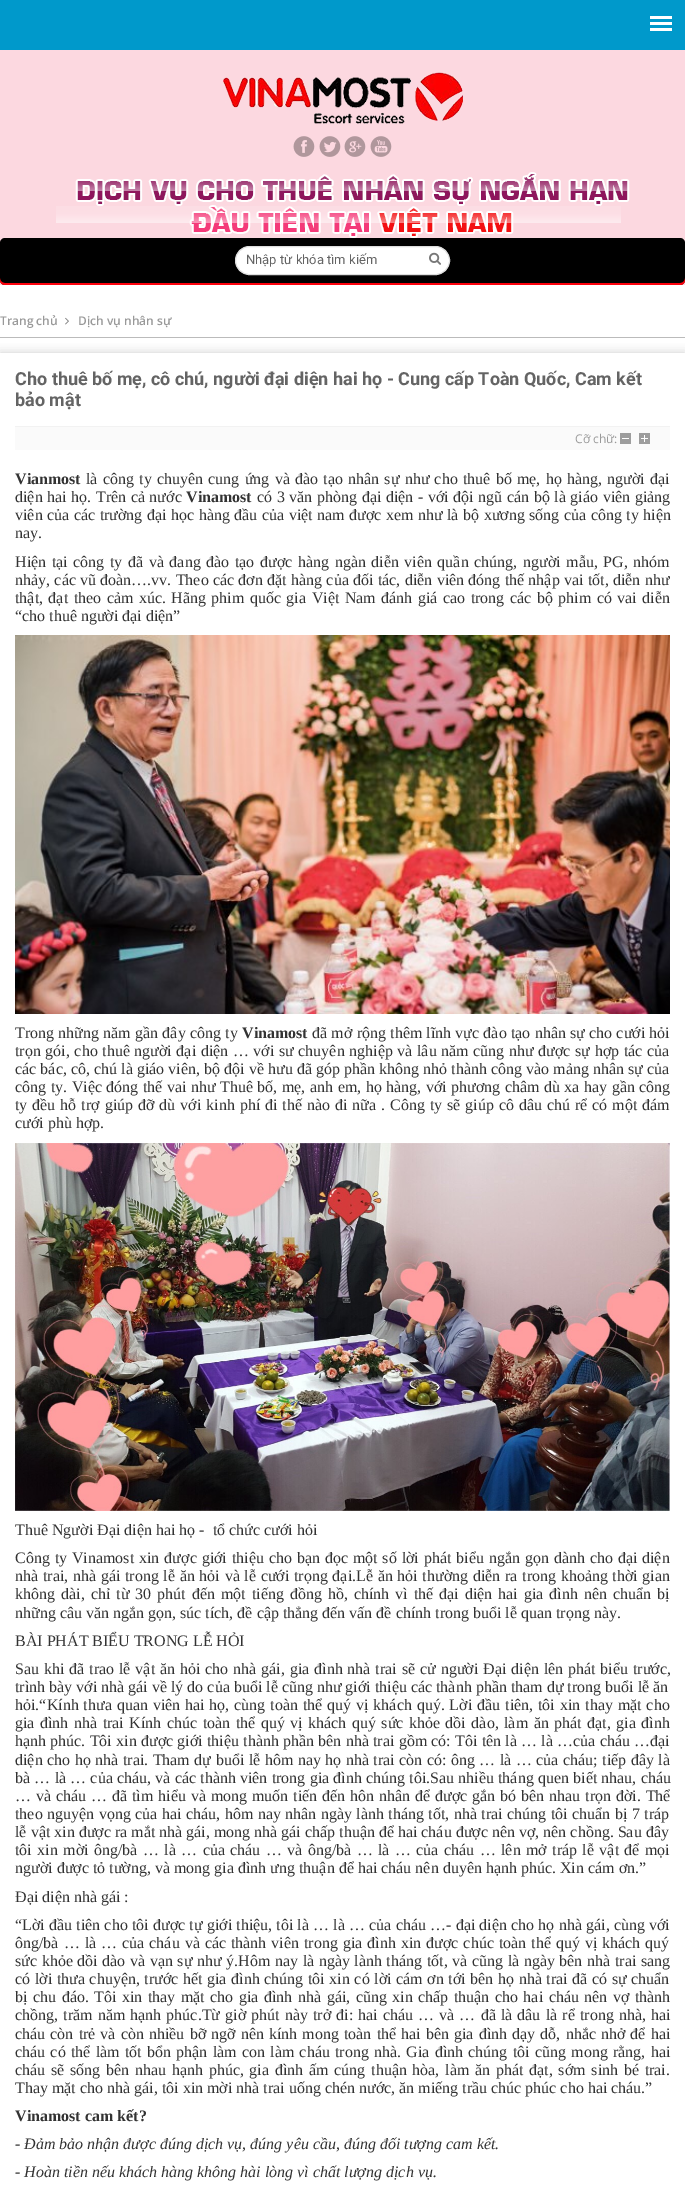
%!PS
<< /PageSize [685 2196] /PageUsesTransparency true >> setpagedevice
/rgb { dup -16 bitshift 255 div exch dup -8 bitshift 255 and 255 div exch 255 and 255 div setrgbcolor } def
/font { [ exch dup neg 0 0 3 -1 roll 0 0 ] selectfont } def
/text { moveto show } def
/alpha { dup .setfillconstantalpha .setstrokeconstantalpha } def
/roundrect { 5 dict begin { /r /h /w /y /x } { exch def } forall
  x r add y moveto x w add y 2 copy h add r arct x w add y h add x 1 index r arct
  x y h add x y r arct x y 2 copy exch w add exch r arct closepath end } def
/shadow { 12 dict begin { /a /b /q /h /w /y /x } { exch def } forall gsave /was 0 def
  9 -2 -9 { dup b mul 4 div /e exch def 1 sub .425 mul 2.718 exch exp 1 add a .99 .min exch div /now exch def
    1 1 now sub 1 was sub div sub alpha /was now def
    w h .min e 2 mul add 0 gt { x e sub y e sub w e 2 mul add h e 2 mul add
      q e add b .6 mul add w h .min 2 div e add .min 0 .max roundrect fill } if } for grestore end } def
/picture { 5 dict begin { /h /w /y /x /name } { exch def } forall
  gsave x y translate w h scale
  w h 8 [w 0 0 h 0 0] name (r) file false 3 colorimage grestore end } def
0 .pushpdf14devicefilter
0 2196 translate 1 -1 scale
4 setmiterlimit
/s1 { /Roboto-Regular 13 font 16#646464 rgb } def
/s2 { /OpenSans-SemiBold 12 font 16#999999 rgb } def
/s3 { /Roboto-Bold 18 font 16#646464 rgb } def
/s4 { /OpenSans-Regular 12 font 16#999999 rgb } def
/s5 { /LiberationSerif-Bold 16 font 16#333333 rgb } def
/s6 { /LiberationSerif-Regular 16 font 16#333333 rgb } def
/s7 { /LiberationSerif-Italic 16 font 16#333333 rgb } def
16#FFFFFF rgb
0 0 685 2196 rectfill
16#0099CB rgb
0 0 685 50 rectfill
16#FFFFFF rgb
650 16 22 3 rectfill
650 22 22 3 rectfill
650 28 22 3 rectfill
16#FCD8E0 rgb
0 50 685 235 rectfill
(pic1.raw) 223 72 240 52 picture
(pic2.raw) 293 136 22 21 picture
(pic3.raw) 319 136 22 21 picture
(pic4.raw) 344 136 22 21 picture
(pic5.raw) 370 136 22 21 picture
(pic6.raw) 56 172 574 66 picture
16#000000 rgb
0 238 685 47 5 roundrect fill
16#FD010C rgb
0 278 moveto 0 280 lineto 0 283 2 285 5 285 curveto 680 285 lineto 683 285 685 283 685 280 curveto 685 278 lineto 685 281 683 283 680 283 curveto 5 283 lineto 2 283 0 281 0 278 curveto closepath fill
16#FFFFFF rgb
235.5 246.5 214 28 14 roundrect gsave fill grestore
16#DDDDDD rgb
stroke
s1
(Nhập từ khóa tìm kiếm) 246 264 text
(pic7.raw) 429 252 12 13 picture
16#BBBBBB rgb
0 337 685 1 rectfill
s2
(Trang chủ) 0 325 text
(pic8.raw) 65 317 4 8 picture
(Dịch vụ nhân sự) 78 325 text
gsave
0 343 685 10 rectclip
16#CCCCCC rgb
0 353 685 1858 0 5 1 shadow
grestore
s3
(Cho thuê bố mẹ, cô chú, người đại diện hai họ - Cung cấp Toàn Quốc, Cam kết) 15 385 text
(bảo mật) 15 406 text
16#FAFAFA rgb
15 427 655 23 rectfill
16#F2F2F2 rgb
15 426 655 1 rectfill
s4
(Cỡ chữ:) 575 443 text
(pic9.raw) 620 433 11 11 picture
(pic10.raw) 639 433 11 11 picture
s5
(Vianmost) 15 484 text
/LiberationSerif-Regular 16 font
86 484 moveto 1.25 0 32 (là công ty chuyên cung ứng và đào tạo nhân sự như cho thuê bố mẹ, họ hàng, người đại) widthshow
15 502 moveto 0.6 0 32 (diện hai họ. Trên cả nước) widthshow
s5
(Vinamost) 186 502 text
/LiberationSerif-Regular 16 font
257 502 moveto 0.6 0 32 (có 3 văn phòng đại diện - với đội ngũ cán bộ là giáo viên giảng) widthshow
15 520 moveto 0.5 0 32 (viên của các trường đại học hàng đầu của việt nam được xem như là bộ xương sống của công ty hiện) widthshow
(nay.) 15 538 text
15 567 moveto 1.6 0 32 (Hiện tại công ty đã và đang đào tạo được hàng ngàn diễn viên quần chúng, người mẫu, PG, nhóm) widthshow
15 585 moveto 0.3 0 32 (nhảy, các vũ đoàn….vv. Theo các đơn đặt hàng của đối tác, diễn viên đóng thế nhập vai tốt, diễn như) widthshow
15 603 moveto 1.5 0 32 (thật, đạt theo cảm xúc. Hãng phim quốc gia Việt Nam đánh giá cao trong các bộ phim có vai diễn) widthshow
(“cho thuê người đại diện”) 15 621 text
(pic11.raw) 15 635 655 379 picture
15 1038 moveto 0.25 0 32 (Trong những năm gần đây công ty) widthshow
s5
(Vinamost) 242 1038 text
/LiberationSerif-Regular 16 font
312 1038 moveto 0.25 0 32 (đã mở rộng thêm lĩnh vực đào tạo nhân sự cho cưới hỏi) widthshow
15 1056 moveto 0.6 0 32 (trọn gói, cho thuê người đại diện … với sư chuyên nghiệp và lâu năm cũng như được sự hợp tác của) widthshow
15 1074 moveto 0.1 0 32 (các bác, cô, chú là giáo viên, bộ đội về hưu đã góp phần không nhỏ thành công vào mảng nhân sự của) widthshow
15 1092 moveto 0.5 0 32 (công ty. Việc đóng thế vai như Thuê bố, mẹ, anh em, họ hàng, với phương châm dù xa hay gần công) widthshow
15 1110 moveto 0.95 0 32 (ty đều hỗ trợ giúp đỡ dù với kinh phí đi thế nào đi nữa . Công ty sẽ giúp cô dâu chú rể có một đám) widthshow
(cưới phù hợp.) 15 1128 text
(pic12.raw) 15 1143 655 368 picture
(Thuê Người Đại diện hai họ -  tổ chức cưới hỏi) 15 1535 text
15 1563 moveto 0.9 0 32 (Công ty Vinamost xin được giới thiệu cho bạn đọc một số lời phát biểu ngắn gọn dành cho đại diện) widthshow
15 1581 moveto 0.7 0 32 (nhà trai, nhà gái trong lễ ăn hỏi và lễ cưới trọng đại.Lễ ăn hỏi thường diễn ra trong khoảng thời gian) widthshow
15 1599 moveto 2 0 32 (không dài, chỉ từ 30 phút đến một tiếng đồng hồ, chính vì thế đại diện hai gia đình nên chuẩn bị) widthshow
(những câu văn ngắn gọn, súc tích, đề cập thẳng đến vấn đề chính trong buổi lễ quan trọng này.) 15 1618 text
(BÀI PHÁT BIỂU TRONG LỄ HỎI) 15 1646 text
15 1674 moveto 0.9 0 32 (Sau khi đã trao lễ vật ăn hỏi cho nhà gái, gia đình nhà trai sẽ cử người Đại diện lên phát biểu trước,) widthshow
(trình bày với nhà gái về lý do của buổi lễ cũng như giới thiệu các thành phần tham dự trong buổi lễ ăn) 15 1692 text
15 1710 moveto 0.9 0 32 (hỏi.“Kính thưa quan viên hai họ, cùng toàn thể quý vị khách quý. Lời đầu tiên, tôi xin thay mặt cho) widthshow
15 1728 moveto 1.5 0 32 (gia đình nhà trai Kính chúc toàn thể quý vị khách quý sức khỏe dồi dào, làm ăn phát đạt, gia đình) widthshow
15 1746 moveto 0.25 0 32 (hạnh phúc. Tôi xin được giới thiệu thành phần bên nhà trai gồm có: Tôi tên là … là …của cháu …đại) widthshow
15 1765 moveto 0.5 0 32 (diện cho họ nhà trai. Tham dự buổi lễ hôm nay họ nhà trai còn có: ông … là … của cháu; tiếp đây là) widthshow
15 1783 moveto 0.2 0 32 (bà … là … của cháu, và các thành viên trong gia đình chúng tôi.Sau nhiều tháng quen biết nhau, cháu) widthshow
15 1801 moveto 0.9 0 32 (… và cháu … đã tìm hiểu và mong muốn tiến đến hôn nhân để được gắn bó bên nhau trọn đời. Thể) widthshow
15 1819 moveto 0.5 0 32 (theo nguyện vọng của hai cháu, hôm nay nhân ngày lành tháng tốt, nhà trai chúng tôi chuẩn bị 7 tráp) widthshow
(lễ vật xin được ra mắt nhà gái, mong nhà gái chấp thuận để hai cháu được nên vợ, nên chồng. Sau đây) 15 1837 text
15 1855 moveto 1.4 0 32 (tôi xin mời ông/bà … là … của cháu … và ông/bà … là … của cháu … lên mở tráp lễ vật để mọi) widthshow
(người được tỏ tường, và mong gia đình ưng thuận để hai cháu nên duyên hạnh phúc. Xin cám ơn.”) 15 1873 text
(Đại diện nhà gái :) 15 1902 text
15 1930 moveto 0.2 0 32 (“Lời đầu tiên cho tôi được tự giới thiệu, tôi là … là … của cháu …- đại diện cho họ nhà gái, cùng với) widthshow
15 1948 moveto 1 0 32 (ông/bà … là … của cháu và các thành viên trong gia đình xin được chúc toàn thể quý vị khách quý) widthshow
15 1966 moveto 0.6 0 32 (sức khỏe dồi dào và vạn sự như ý.Hôm nay là ngày lành tháng tốt, và cũng là ngày bên nhà trai sang) widthshow
15 1984 moveto 0.6 0 32 (có lời thưa chuyện, trước hết gia đình chúng tôi xin có lời cám ơn tới bên họ nhà trai đã có sự chuẩn) widthshow
15 2002 moveto 1.5 0 32 (bị chu đáo. Tôi xin thay mặt cho gia đình nhà gái, cũng xin chấp thuận cho hai cháu nên vợ thành) widthshow
15 2020 moveto 1.1 0 32 (chồng, trăm năm hạnh phúc.Từ giờ phút này trở đi: hai cháu … và … đã là dâu là rể trong nhà, hai) widthshow
15 2039 moveto 1.1 0 32 (cháu còn trẻ và còn nhiều bỡ ngỡ nên kính mong toàn thể hai bên gia đình dạy dỗ, nhắc nhở để hai) widthshow
15 2057 moveto 1.25 0 32 (cháu có thể làm tốt bổn phận làm con làm cháu trong nhà. Gia đình chúng tôi cũng mong rằng, hai) widthshow
15 2075 moveto 1.75 0 32 (cháu sẽ sống bên nhau hạnh phúc, gia đình ấm cúng thuận hòa, làm ăn phát đạt, sớm sinh bé trai.) widthshow
(Thay mặt cho nhà gái, tôi xin mời nhà trai uống chén nước, ăn miếng trầu chúc phúc cho hai cháu.”) 15 2093 text
s5
(Vinamost cam kết?) 15 2121 text
s7
(- Đảm bảo nhận được đúng dịch vụ, đúng yêu cầu, đúng đối tượng cam kết.) 15 2149 text
(- Hoàn tiền nếu khách hàng không hài lòng vì chất lượng dịch vụ.) 15 2177 text
.poppdf14devicefilter showpage
